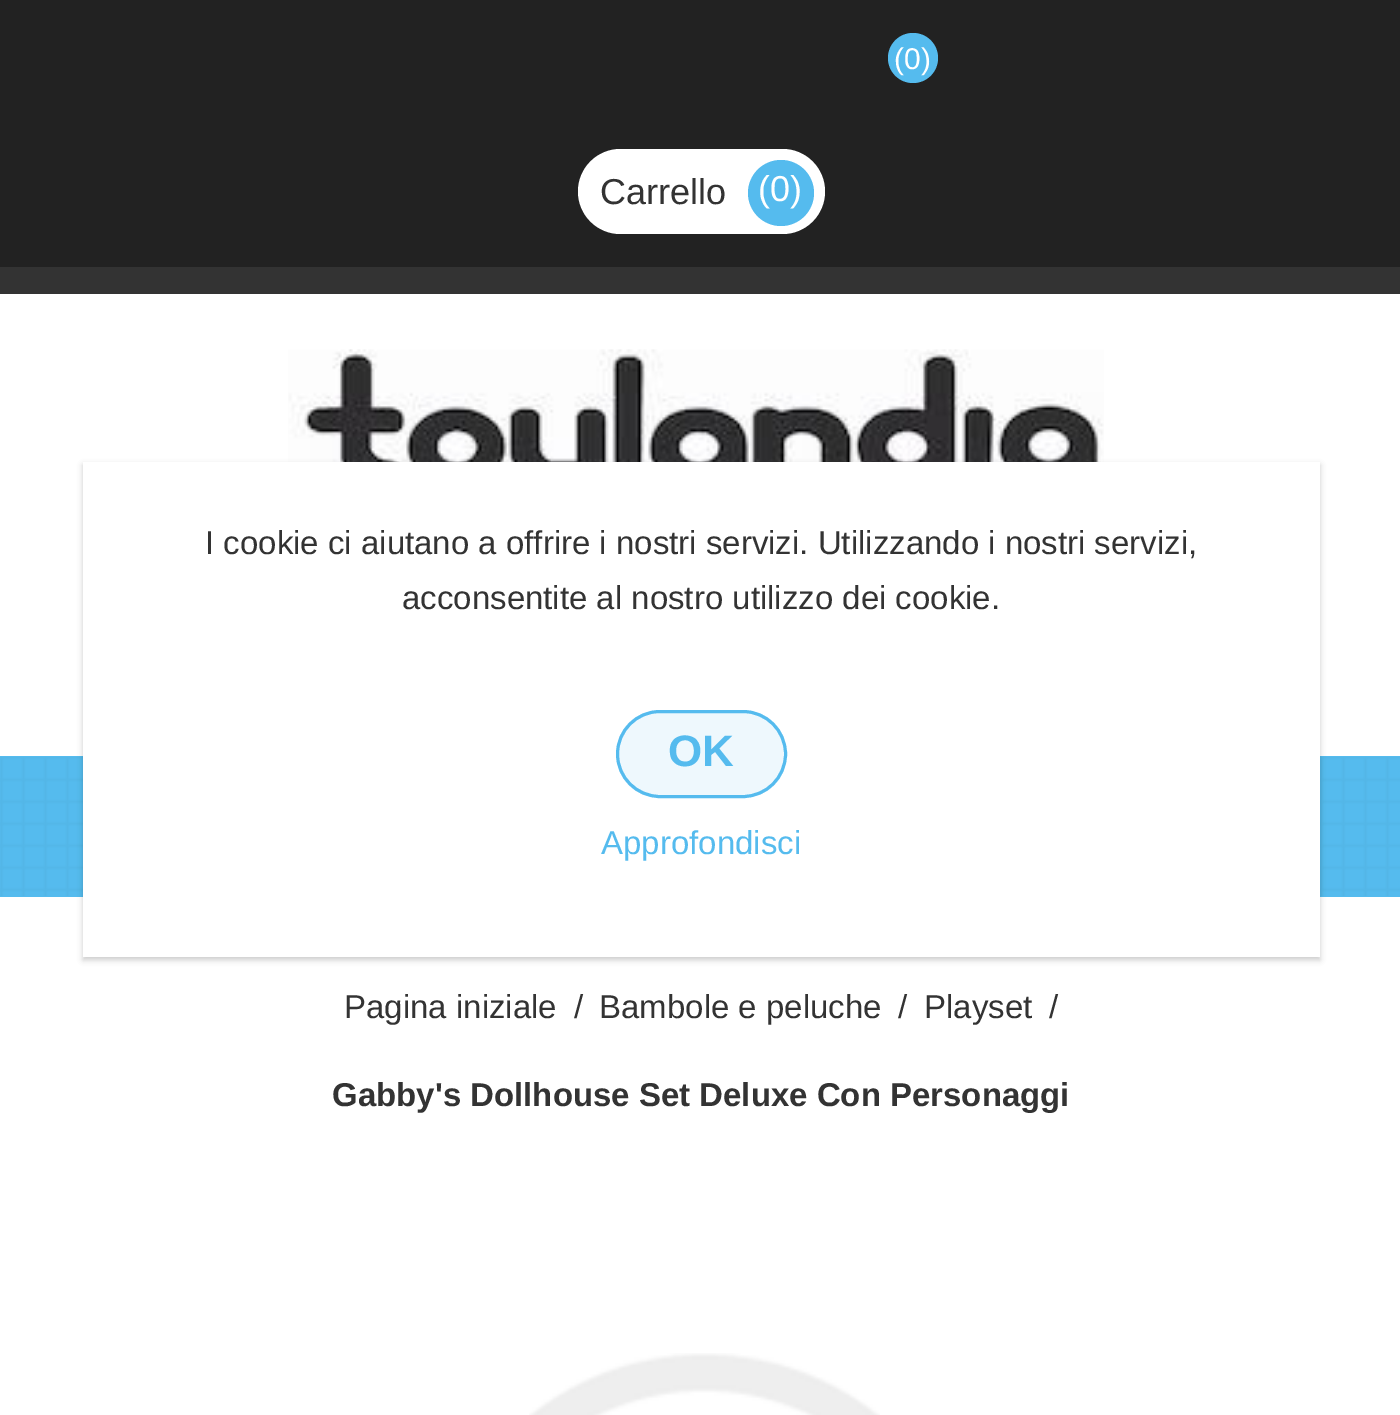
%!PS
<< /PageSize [1400 1415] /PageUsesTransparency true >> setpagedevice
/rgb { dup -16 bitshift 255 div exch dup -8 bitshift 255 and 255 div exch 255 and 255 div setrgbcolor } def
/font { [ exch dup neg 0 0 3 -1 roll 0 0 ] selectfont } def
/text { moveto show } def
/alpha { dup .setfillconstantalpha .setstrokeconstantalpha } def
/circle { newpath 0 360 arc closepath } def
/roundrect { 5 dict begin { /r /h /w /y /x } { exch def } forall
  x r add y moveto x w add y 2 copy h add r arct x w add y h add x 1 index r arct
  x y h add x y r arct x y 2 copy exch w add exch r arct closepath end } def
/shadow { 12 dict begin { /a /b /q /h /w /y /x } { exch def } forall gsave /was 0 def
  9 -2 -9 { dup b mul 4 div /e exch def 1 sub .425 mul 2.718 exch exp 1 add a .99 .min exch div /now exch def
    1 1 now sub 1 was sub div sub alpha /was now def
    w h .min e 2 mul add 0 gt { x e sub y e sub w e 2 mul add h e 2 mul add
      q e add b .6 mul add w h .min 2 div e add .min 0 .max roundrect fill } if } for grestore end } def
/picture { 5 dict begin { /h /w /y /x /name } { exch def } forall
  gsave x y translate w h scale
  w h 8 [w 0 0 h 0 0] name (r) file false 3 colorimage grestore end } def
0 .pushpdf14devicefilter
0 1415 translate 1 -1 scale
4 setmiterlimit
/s1 { /LiberationSans-Regular 30 font 16#FFFFFF rgb } def
/s2 { /LiberationSans-Regular 36 font 16#333333 rgb } def
/s3 { /LiberationSans-Regular 36 font 16#FFFFFF rgb } def
/s4 { /LiberationSans-Regular 33 font 16#333333 rgb } def
/s5 { /LiberationSans-Bold 33 font 16#333333 rgb } def
/s6 { /LiberationSans-Bold 44 font 16#55BBEE rgb } def
/s7 { /LiberationSans-Regular 33 font 16#55BBEE rgb } def
16#FFFFFF rgb
0 0 1400 1415 rectfill
16#333333 rgb
0 267 1400 27 rectfill
16#222222 rgb
0 0 1400 267 rectfill
16#55BBEE rgb
913 58 25 circle fill
s1
(\(0\)) 894 69 text
578 149 247 85 42.5 roundrect fill
s2
(Carrello) 600 204 text
16#55BBEE rgb
781 193 33 circle fill
s3
(\(0\)) 758 201 text
(pic1.raw) 288 349 816 113 picture
16#55BBEE rgb
0 756 1400 141 rectfill
(pic2.raw) 0 757 1400 139 picture
s4
(Pagina iniziale) 344 1018 text
(/) 574 1018 text
(Bambole e peluche) 599 1018 text
(/) 898 1018 text
(Playset) 924 1018 text
(/) 1049 1018 text
s5
(Gabby's Dollhouse Set Deluxe Con Personaggi) 332 1106 text
(pic3.raw) 529 1353 351 62 picture
16#000000 rgb
83 465 1237 495 0 3 0.2 shadow
16#FFFFFF rgb
83 462 1237 495 rectfill
s4
(I cookie ci aiutano a offrire i nostri servizi. Utilizzando i nostri servizi,) 205 554 text
(acconsentite al nostro utilizzo dei cookie.) 402 609 text
16#EEF8FD rgb
617.5 711.5 168 85 42.5 roundrect gsave fill grestore
16#55BBEE rgb
3 setlinewidth
stroke
s6
(OK) 668 766 text
s7
(Approfondisci) 601 854 text
.poppdf14devicefilter showpage
